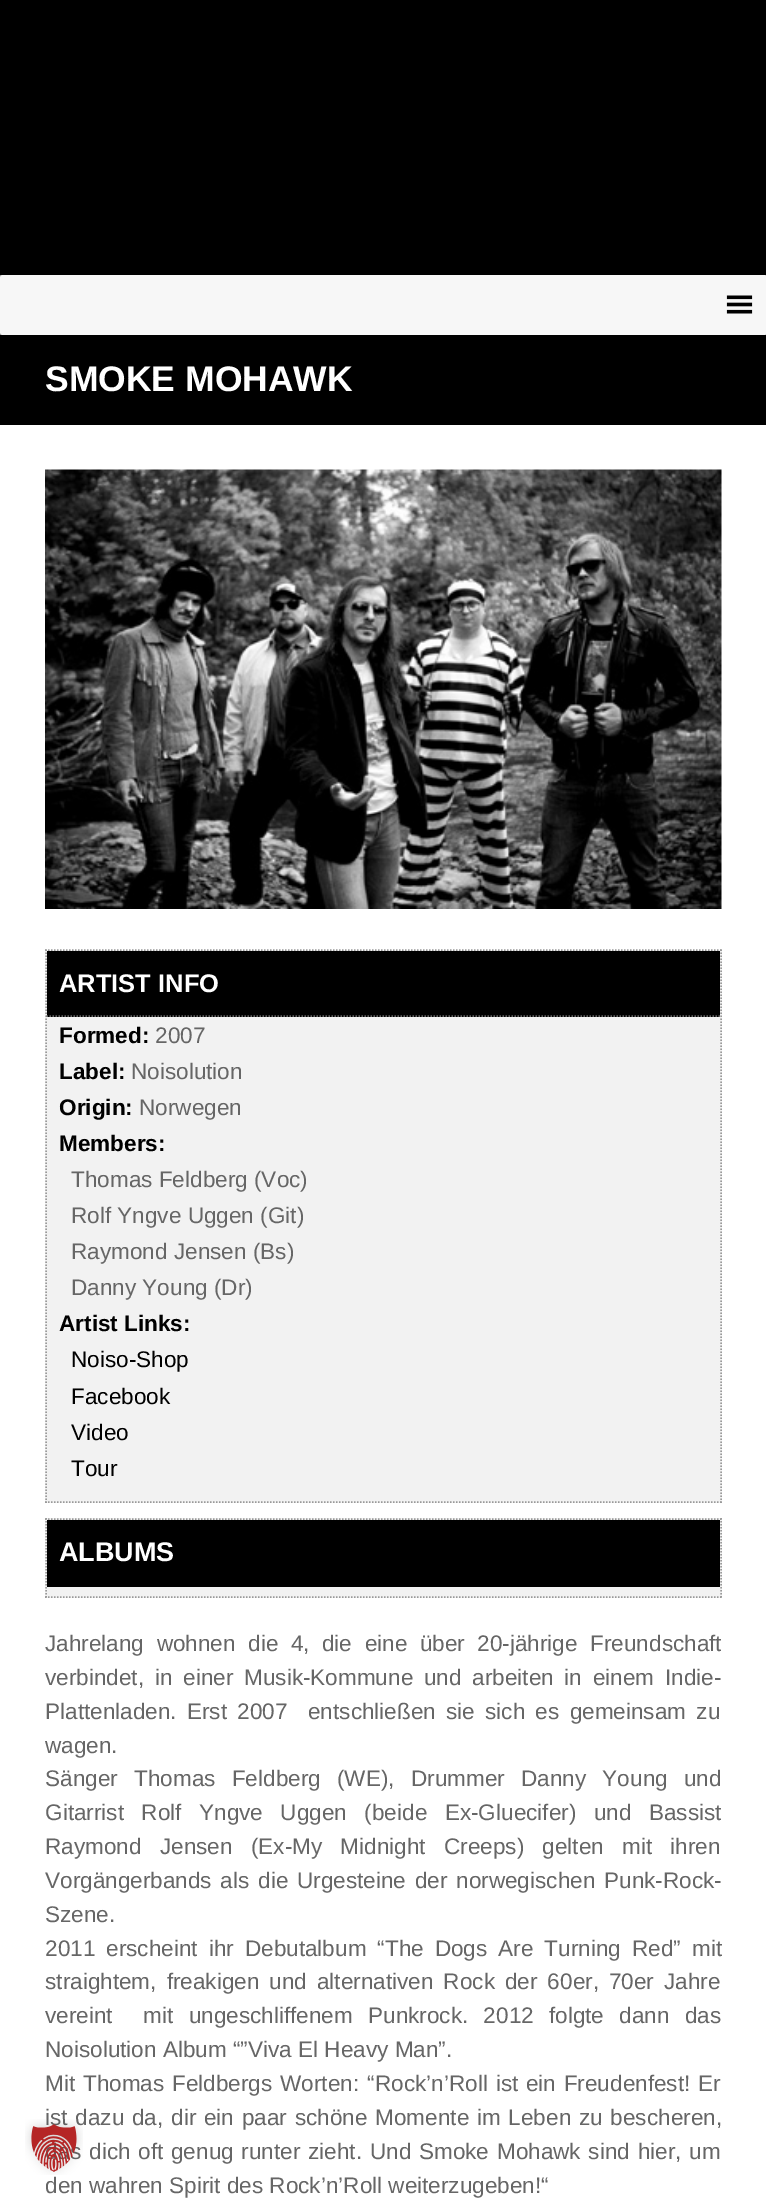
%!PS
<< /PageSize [766 2202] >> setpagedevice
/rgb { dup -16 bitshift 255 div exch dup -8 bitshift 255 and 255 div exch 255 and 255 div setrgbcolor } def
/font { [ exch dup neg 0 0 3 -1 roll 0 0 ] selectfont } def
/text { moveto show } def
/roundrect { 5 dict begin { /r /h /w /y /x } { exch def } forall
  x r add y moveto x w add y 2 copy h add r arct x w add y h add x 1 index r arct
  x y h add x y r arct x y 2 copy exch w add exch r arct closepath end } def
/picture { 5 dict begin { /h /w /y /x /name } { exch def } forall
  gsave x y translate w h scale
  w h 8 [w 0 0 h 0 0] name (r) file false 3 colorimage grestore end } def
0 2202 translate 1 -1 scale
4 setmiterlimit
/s1 { /LiberationSans-Bold 35.5 font 16#FFFFFF rgb } def
/s2 { /LiberationSans-Bold 25.5 font 16#FFFFFF rgb } def
/s3 { /LiberationSans-Bold 22.55 font 16#000000 rgb } def
/s4 { /LiberationSans-Regular 22.55 font 16#666666 rgb } def
/s5 { /LiberationSans-Regular 22.55 font 16#000000 rgb } def
/s6 { /LiberationSans-Bold 27 font 16#FFFFFF rgb } def
16#FFFFFF rgb
0 0 766 2202 rectfill
16#000000 rgb
0 0 766 425 rectfill
16#969696 rgb
765 334 1 1 rectfill
16#9B9B9B rgb
765 275 1 2 rectfill
16#969696 rgb
0 275 2 60 rectfill
16#9B9B9B rgb
0 275 2 2 rectfill
16#F7F7F7 rgb
0 275 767 60 3 roundrect fill
(pic1.raw) 726 295 27 19 picture
s1
(SMOKE MOHAWK) 45 391 text
(pic2.raw) 45 469 677 440 picture
16#F2F2F2 rgb
45 950 677 553 rectfill
16#999999 rgb
1.5 setlinewidth
[1.5 1.5] 0 setdash
45 950 moveto 721.5 950 lineto stroke
721 949.5 moveto 721 1503 lineto stroke
45 1502 moveto 721.5 1502 lineto stroke
46 949.5 moveto 46 1503 lineto stroke
16#000000 rgb
47 951 673 66 rectfill
16#666666 rgb
46.5 1016 moveto 720 1016 lineto stroke
s2
(ARTIST INFO) 59 992 text
s3
(Formed:) 59 1043 text
s4
(2007) 155 1043 text
s3
(Label:) 59 1079 text
s4
(Noisolution) 131 1079 text
s3
(Origin:) 59 1115 text
s4
(Norwegen) 139 1115 text
s3
(Members:) 59 1151 text
s4
(Thomas Feldberg \(Voc\)) 71 1187 text
(Rolf Yngve Uggen \(Git\)) 71 1223 text
(Raymond Jensen \(Bs\)) 71 1259 text
(Danny Young \(Dr\)) 71 1295 text
s3
(Artist Links:) 59 1331 text
s5
(Noiso-Shop) 71 1367 text
(Facebook) 71 1404 text
(Video) 71 1440 text
(Tour) 71 1476 text
16#F2F2F2 rgb
45 1518 677 80 rectfill
16#999999 rgb
45 1519 moveto 721.5 1519 lineto stroke
721 1518 moveto 721 1597.5 lineto stroke
45 1597 moveto 721.5 1597 lineto stroke
46 1518 moveto 46 1597.5 lineto stroke
16#000000 rgb
47 1520 673 67 rectfill
s6
(ALBUMS) 59 1561 text
/LiberationSans-Regular 22.55 font
16#666666 rgb
45 1651 moveto 6.25 0 32 (Jahrelang wohnen die 4, die eine über 20-jährige Freundschaft) widthshow
45 1685 moveto 4.5 0 32 (verbindet, in einer Musik-Kommune und arbeiten in einem Indie-) widthshow
45 1719 moveto 4 0 32 (Plattenladen. Erst 2007  entschließen sie sich es gemeinsam zu) widthshow
(wagen.) 45 1753 text
45 1786 moveto 10 0 32 (Sänger Thomas Feldberg \(WE\), Drummer Danny Young und) widthshow
45 1820 moveto 11.25 0 32 (Gitarrist Rolf Yngve Uggen \(beide Ex-Gluecifer\) und Bassist) widthshow
45 1854 moveto 12 0 32 (Raymond Jensen \(Ex-My Midnight Creeps\) gelten mit ihren) widthshow
45 1888 moveto 2.5 0 32 (Vorgängerbands als die Urgesteine der norwegischen Punk-Rock-) widthshow
(Szene.) 45 1922 text
45 1956 moveto 4.75 0 32 (2011 erscheint ihr Debutalbum “The Dogs Are Turning Red” mit) widthshow
45 1989 moveto 3.75 0 32 (straightem, freakigen und alternativen Rock der 60er, 70er Jahre) widthshow
45 2023 moveto 9 0 32 (vereint  mit ungeschliffenem Punkrock. 2012 folgte dann das) widthshow
(Noisolution Album “”Viva El Heavy Man”.) 45 2057 text
45 2091 moveto 1.5 0 32 (Mit Thomas Feldbergs Worten: “) widthshow
375 2091 moveto 1.5 0 32 (Rock’n’Roll ist ein Freudenfest! Er) widthshow
45 2125 moveto 1.5 0 32 (ist dazu da, dir ein paar schöne Momente im Leben zu bescheren,) widthshow
89 2159 moveto 1.5 0 32 (dich oft genug runter zieht. Und Smoke Mohawk sind hier, um) widthshow
(den wahren Spirit des Rock’n’Roll weiterzugeben!“) 45 2193 text
(pic3.raw) 25 2119 58 56 picture
showpage
